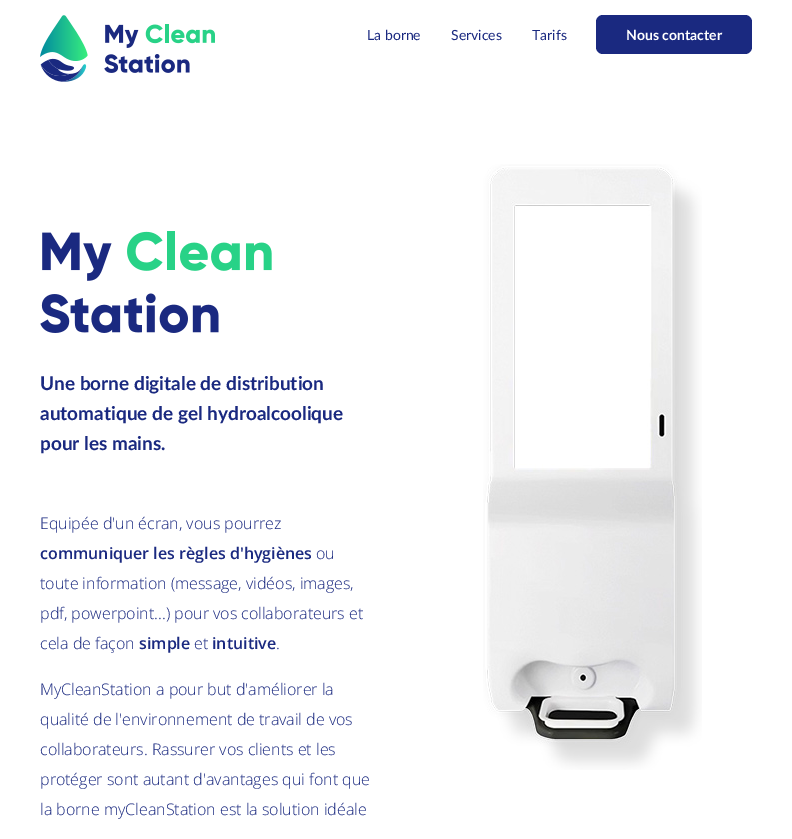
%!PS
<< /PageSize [792 839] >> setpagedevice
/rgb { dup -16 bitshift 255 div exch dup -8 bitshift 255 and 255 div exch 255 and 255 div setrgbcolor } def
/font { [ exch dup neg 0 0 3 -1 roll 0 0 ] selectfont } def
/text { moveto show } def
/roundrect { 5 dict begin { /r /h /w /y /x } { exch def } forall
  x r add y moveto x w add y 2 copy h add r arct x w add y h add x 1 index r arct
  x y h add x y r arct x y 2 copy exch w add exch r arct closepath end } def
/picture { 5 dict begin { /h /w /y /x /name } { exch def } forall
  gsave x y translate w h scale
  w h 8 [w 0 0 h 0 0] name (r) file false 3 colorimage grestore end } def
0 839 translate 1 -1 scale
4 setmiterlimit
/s1 { /Lato-Regular 14 font 16#1A2980 rgb } def
/s2 { /Lato-Bold 14 font 16#FFFFFF rgb } def
/s3 { /Lato-Bold 19 font 16#1A2980 rgb } def
/s4 { /OpenSans-Light 16 font 16#1A2980 rgb } def
/s5 { /OpenSans-SemiBold 16 font 16#1A2980 rgb } def
16#FFFFFF rgb
0 0 792 839 rectfill
(pic1.raw) 40 15 175 67 picture
s1
(La borne) 367 40 text
(Services) 451 40 text
(Tarifs) 532 40 text
596 15 156 39 7 roundrect fill
s2
(Nous contacter) 626 40 text
(pic2.raw) 40 231 232 102 picture
s3
(Une borne digitale de distribution) 40 390 text
(automatique de gel hydroalcoolique) 40 420 text
(pour les mains.) 40 450 text
s4
(Equipée d'un écran, vous pourrez) 40 529 text
s5
(communiquer les règles d'hygiènes) 40 559 text
s4
(ou) 316 559 text
(toute information \(message, vidéos, images,) 40 589 text
(pdf, powerpoint...\) pour vos collaborateurs et) 40 619 text
(cela de façon) 40 649 text
s5
(simple) 139 649 text
s4
(et) 194 649 text
s5
(intuitive) 212 649 text
s4
(.) 276 649 text
(MyCleanStation a pour but d'améliorer la) 40 695 text
(qualité de l'environnement de travail de vos) 40 725 text
(collaborateurs. Rassurer vos clients et les) 40 755 text
(protéger sont autant d'avantages qui font que) 40 785 text
(la borne myCleanStation est la solution idéale) 40 815 text
(pic3.raw) 483 164 219 606 picture
showpage
